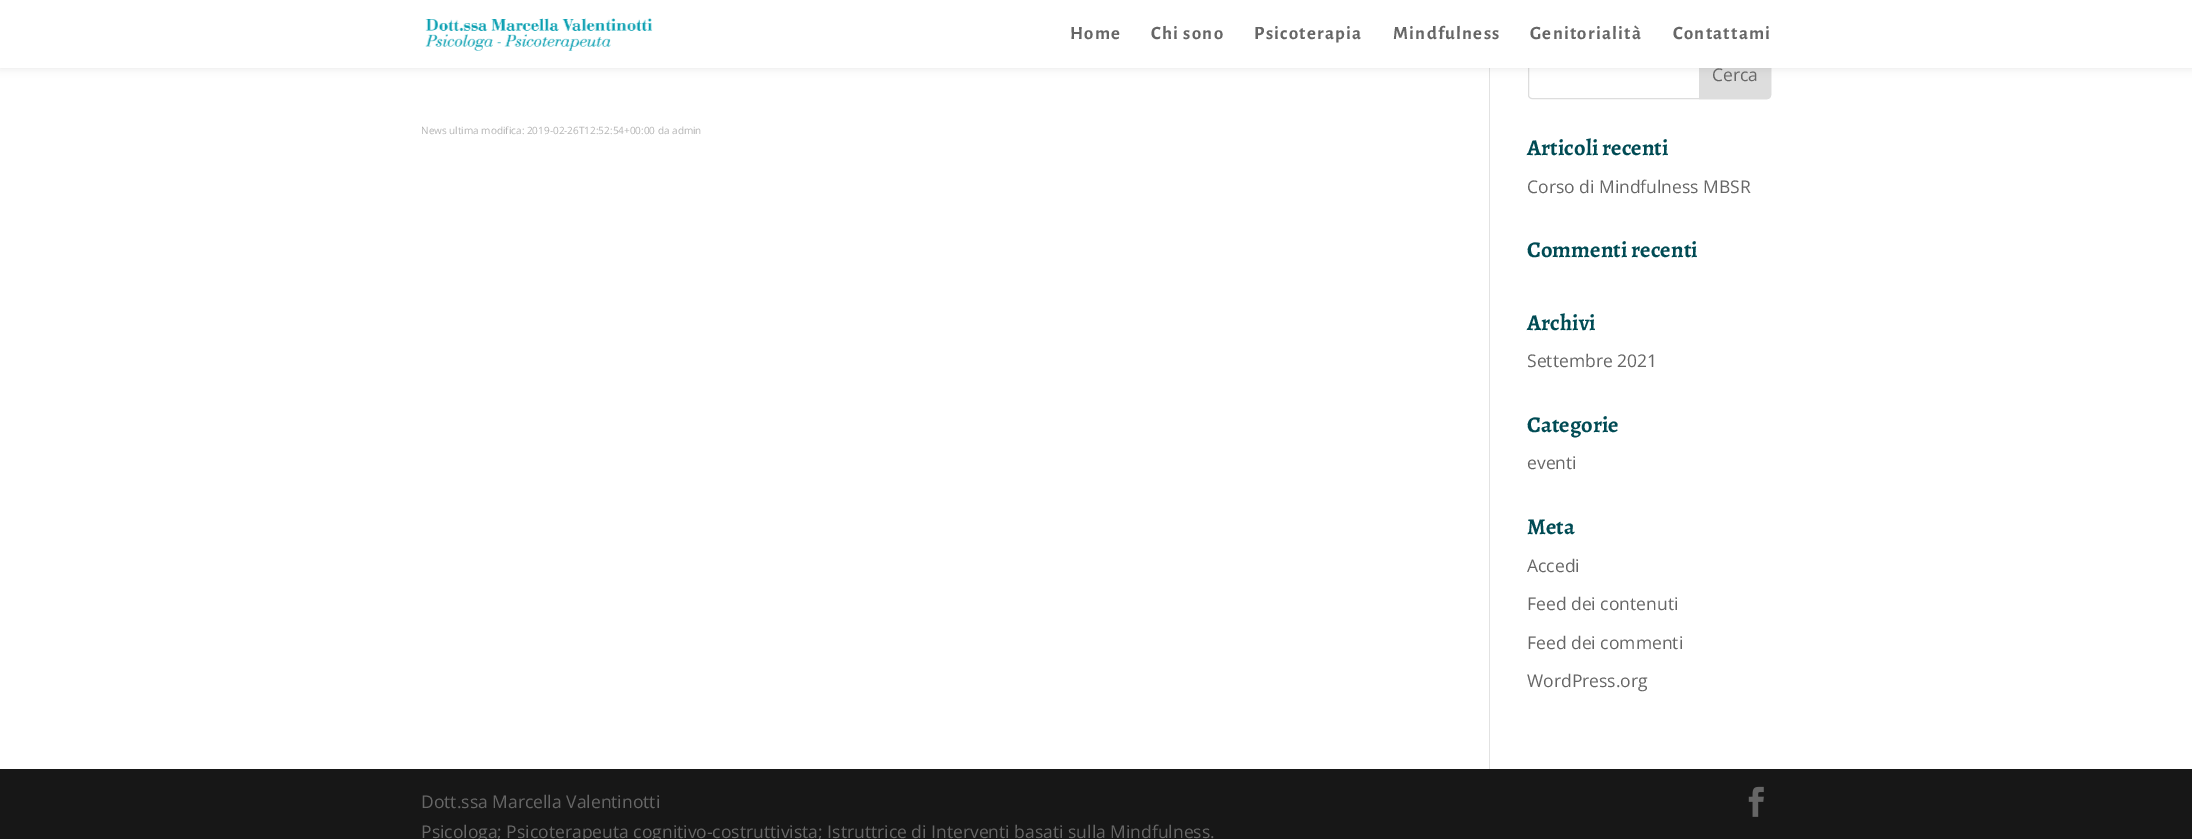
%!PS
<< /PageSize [2192 839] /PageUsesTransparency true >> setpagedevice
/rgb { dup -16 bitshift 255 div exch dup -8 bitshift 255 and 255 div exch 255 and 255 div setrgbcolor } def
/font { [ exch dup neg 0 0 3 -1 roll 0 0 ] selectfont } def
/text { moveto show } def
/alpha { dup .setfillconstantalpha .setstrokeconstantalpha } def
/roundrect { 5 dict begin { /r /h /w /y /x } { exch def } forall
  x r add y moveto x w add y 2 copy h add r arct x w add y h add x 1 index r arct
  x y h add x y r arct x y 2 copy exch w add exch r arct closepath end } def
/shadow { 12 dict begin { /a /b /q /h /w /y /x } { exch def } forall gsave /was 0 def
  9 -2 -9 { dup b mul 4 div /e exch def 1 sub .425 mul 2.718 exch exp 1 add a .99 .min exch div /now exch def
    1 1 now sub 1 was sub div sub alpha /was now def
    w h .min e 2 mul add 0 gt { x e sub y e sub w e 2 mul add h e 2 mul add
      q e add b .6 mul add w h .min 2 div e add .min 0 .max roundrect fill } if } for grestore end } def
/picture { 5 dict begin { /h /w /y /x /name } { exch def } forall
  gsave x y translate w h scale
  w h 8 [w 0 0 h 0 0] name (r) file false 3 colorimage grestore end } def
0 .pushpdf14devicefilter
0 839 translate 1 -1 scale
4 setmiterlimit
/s1 { /OpenSans-Regular 10 font 16#B3B3B3 rgb } def
/s2 { /OpenSans-Regular 17.5 font 16#666666 rgb } def
/s3 { /Alegreya-Bold 22.5 font 16#004B54 rgb } def
16#FFFFFF rgb
0 0 2192 839 rectfill
16#DDDDDD rgb
1528.5 49.5 242 49 3.5 roundrect stroke
1699.5 49.5 moveto 1767 49.5 lineto 1769 49.5 1770.5 51 1770.5 53 curveto 1770.5 95 lineto 1770.5 97 1769 98.5 1767 98.5 curveto 1699.5 98.5 lineto closepath gsave fill grestore
stroke
16#E2E2E2 rgb
1489 68 1 701 rectfill
16#000000 rgb
0 0 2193 68 0 4.5 0.1 shadow
16#FFFFFF rgb
0 0 2192 68 rectfill
(pic1.raw) 425 18 228 33 picture
/AlegreyaSans-Bold 18.75 font
16#666666 rgb
1070 39 moveto 1.25 0 (Home) ashow
1151 39 moveto 1.25 0 (Chi sono) ashow
1254 39 moveto 1.25 0 (Psicoterapia) ashow
1393 39 moveto 1.25 0 (Mindfulness) ashow
1530 39 moveto 1.25 0 (Genitorialità) ashow
1673 39 moveto 1.25 0 (Contattami) ashow
s1
(News ultima modifica: 2019-02-26T12:52:54+00:00 da admin) 421 134 text
s2
(Cerca) 1712 81 text
s3
(Articoli recenti) 1527 155 text
s2
(Corso di Mindfulness MBSR) 1527 193 text
s3
(Commenti recenti) 1527 257 text
(Archivi) 1527 330 text
s2
(Settembre 2021) 1527 367 text
s3
(Categorie) 1527 432 text
s2
(eventi) 1527 469 text
s3
(Meta) 1527 534 text
s2
(Accedi) 1527 572 text
(Feed dei contenuti) 1527 610 text
(Feed dei commenti) 1527 649 text
(WordPress.org) 1527 687 text
16#171717 rgb
0 769 2192 70 rectfill
s2
(Dott.ssa Marcella Valentinotti) 421 808 text
(Psicologa; Psicoterapeuta cognitivo-costruttivista; Istruttrice di Interventi basati sulla Mindfulness.) 421 838 text
(pic2.raw) 1748 786 16 31 picture
.poppdf14devicefilter showpage
